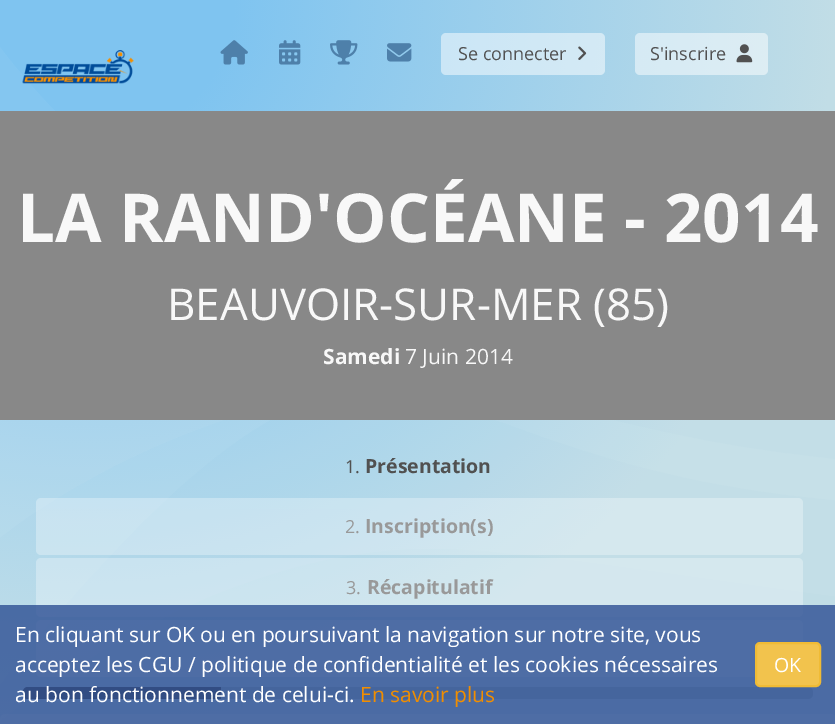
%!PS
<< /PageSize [835 724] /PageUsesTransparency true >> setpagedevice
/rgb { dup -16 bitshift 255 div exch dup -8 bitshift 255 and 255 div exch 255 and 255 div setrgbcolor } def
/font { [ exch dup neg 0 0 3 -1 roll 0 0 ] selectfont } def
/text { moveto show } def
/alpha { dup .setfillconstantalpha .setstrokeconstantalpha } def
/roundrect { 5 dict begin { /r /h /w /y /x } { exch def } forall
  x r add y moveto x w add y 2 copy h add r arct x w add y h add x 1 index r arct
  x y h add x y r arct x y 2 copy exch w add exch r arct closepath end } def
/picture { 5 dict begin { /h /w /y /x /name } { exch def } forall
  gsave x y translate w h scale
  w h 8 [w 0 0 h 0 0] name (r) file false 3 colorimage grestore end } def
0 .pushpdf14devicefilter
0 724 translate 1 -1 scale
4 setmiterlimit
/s1 { /OpenSans-Regular 18 font 16#515151 rgb } def
/s2 { /OpenSans-Bold 67.5 font 16#F8F8F8 rgb } def
/s3 { /OpenSans-Regular 43.9 font 16#F8F8F8 rgb } def
/s4 { /OpenSans-Bold 21 font 16#F8F8F8 rgb } def
/s5 { /OpenSans-Regular 21 font 16#F8F8F8 rgb } def
/s6 { /OpenSans-Bold 19.5 font 16#515151 rgb } def
/s7 { /OpenSans-Regular 18 font 16#999999 rgb } def
/s8 { /OpenSans-Bold 19.5 font 16#999999 rgb } def
/s9 { /OpenSans-Regular 21 font 16#FFFFFF rgb } def
/s10 { /OpenSans-Regular 21 font 16#F18E00 rgb } def
/s11 { /OpenSans-Regular 19.5 font 16#FFFFFF rgb } def
16#FFFFFF rgb
0 0 835 724 rectfill
(pic1.raw) 0 0 835 724 picture
(pic2.raw) 22 50 112 34 picture
(pic3.raw) 220 40 28 25 picture
(pic4.raw) 279 40 22 25 picture
(pic5.raw) 330 40 28 25 picture
(pic6.raw) 387 43 25 19 picture
0.5 alpha
441 33 164 42 5 roundrect fill
1 alpha
s1
(Se connecter) 458 60 text
(pic7.raw) 578 46 9 14 picture
0.5 alpha
16#FFFFFF rgb
635 33 133 42 5 roundrect fill
1 alpha
s1
(S'inscrire) 650 60 text
(pic8.raw) 736 44 17 19 picture
16#888888 rgb
0 111 835 309 rectfill
s2
(LA RAND'OCÉANE - 2014) 17 242 text
s3
(BEAUVOIR-SUR-MER \(85\)) 167 320 text
s4
(Samedi) 323 364 text
s5
(7 Juin 2014) 405 364 text
s1
(1.) 345 473 text
s6
(Présentation) 365 473 text
0.3 alpha
16#FFFFFF rgb
36 498 767 57 5 roundrect fill
1 alpha
s7
(2.) 345 533 text
s8
(Inscription\(s\)) 365 533 text
0.3 alpha
16#FFFFFF rgb
36 558 767 59 5 roundrect fill
1 alpha
s7
(3.) 346 594 text
s8
(Récapitulatif) 367 594 text
0.3 alpha
16#FFFFFF rgb
36 620 767 57 5 roundrect fill
0.15 alpha
16#000000 rgb
23 687 790 12 5 roundrect fill
1 alpha
16#444444 rgb
28 687 moveto 221 687 lineto 221 699 lineto 28 699 lineto 25 699 23 697 23 694 curveto 23 692 lineto 23 689 25 687 28 687 curveto closepath fill
gsave
23 687 790 12 5 roundrect clip newpath
0.15 alpha
16#000000 rgb
23 698 198 1 rectfill
grestore
0.3 alpha
16#FFFFFF rgb
0 714 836 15 5 roundrect fill
0.8 alpha
16#2D4F93 rgb
0 605 835 119 rectfill
1 alpha
s9
(En cliquant sur OK ou en poursuivant la navigation sur notre site, vous) 15 642 text
(acceptez les CGU / politique de confidentialité et les cookies nécessaires) 15 672 text
(au bon fonctionnement de celui-ci.) 15 702 text
s10
(En savoir plus) 360 702 text
16#F2C34D rgb
756 643 64 43 4 roundrect gsave fill grestore
16#F0BB35 rgb
2 setlinewidth
stroke
s11
(OK) 774 672 text
.poppdf14devicefilter showpage
